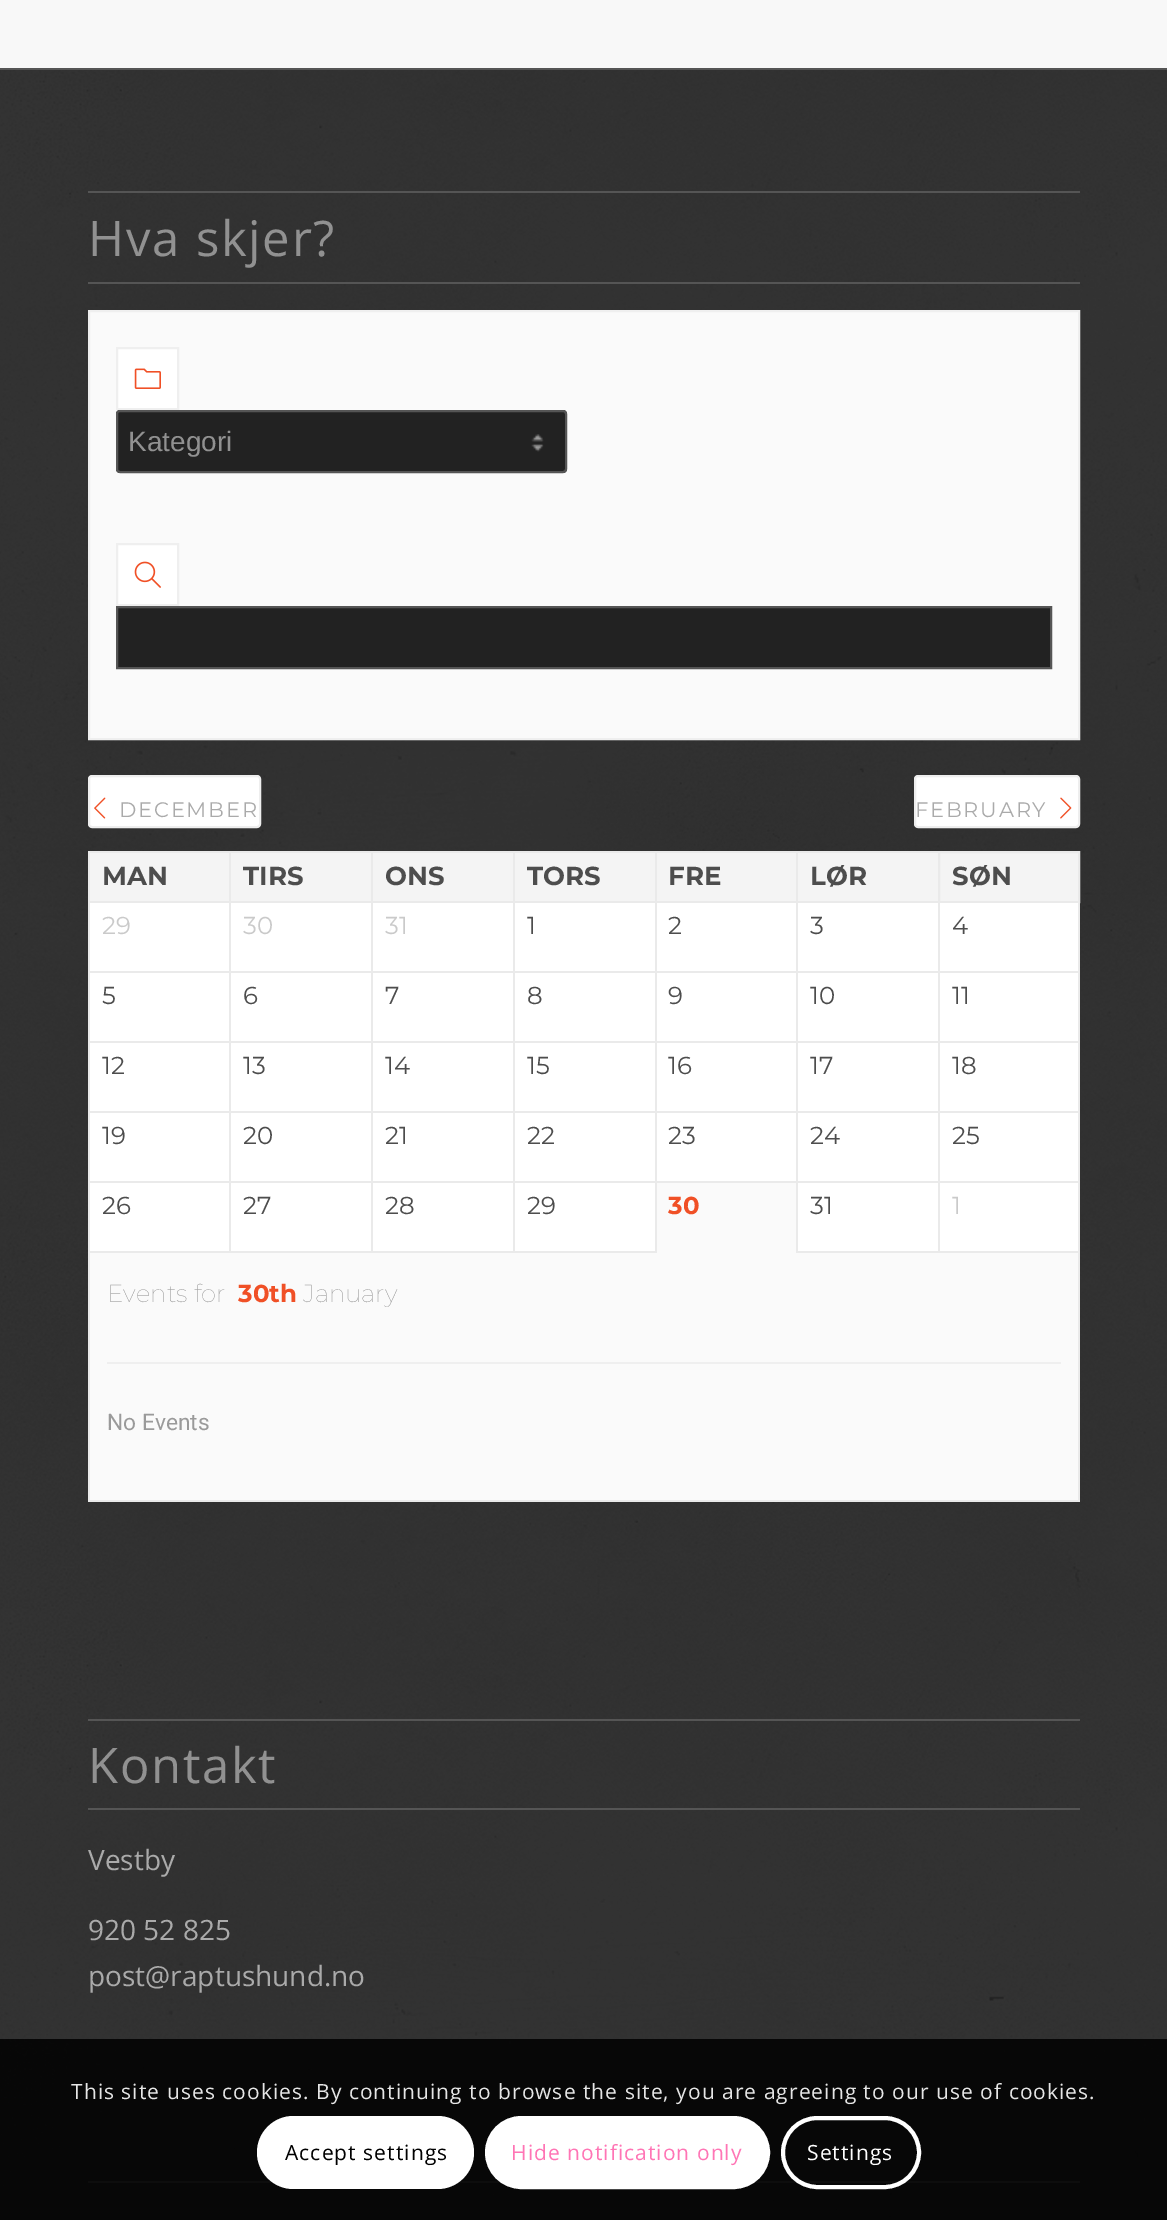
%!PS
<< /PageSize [1167 2220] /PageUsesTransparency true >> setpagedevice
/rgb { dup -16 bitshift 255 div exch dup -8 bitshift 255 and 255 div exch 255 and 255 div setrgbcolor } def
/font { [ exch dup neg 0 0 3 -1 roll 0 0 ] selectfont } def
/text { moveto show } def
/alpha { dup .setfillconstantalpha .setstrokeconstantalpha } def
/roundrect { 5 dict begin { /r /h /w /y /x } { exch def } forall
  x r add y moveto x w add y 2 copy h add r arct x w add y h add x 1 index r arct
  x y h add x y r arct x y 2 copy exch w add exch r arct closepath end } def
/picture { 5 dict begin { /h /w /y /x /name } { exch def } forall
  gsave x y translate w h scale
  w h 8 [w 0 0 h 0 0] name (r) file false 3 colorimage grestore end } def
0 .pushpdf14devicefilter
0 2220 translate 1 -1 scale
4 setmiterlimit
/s1 { /LiberationSans-Regular 28 font 16#919191 rgb } def
/s2 { /Montserrat-Bold 26 font 16#4D4D4D rgb } def
/s3 { /Montserrat-Regular 24.5 font 16#CACACA rgb } def
/s4 { /Montserrat-Regular 24.5 font 16#4D4D4D rgb } def
/s5 { /Montserrat-Bold 24.5 font 16#F05026 rgb } def
/s6 { /Montserrat-Thin 24.5 font 16#919191 rgb } def
/s7 { /Roboto-Regular 22.75 font 16#9A9A9A rgb } def
/s8 { /OpenSans-Regular 28 font 16#AAAAAA rgb } def
16#F8F8F8 rgb
0 0 1167 2220 rectfill
16#333333 rgb
0 70 1167 2150 rectfill
(pic1.raw) 0 70 1167 2150 picture
16#555555 rgb
0 68 1167 2 rectfill
88 191 992 2 rectfill
88 282 992 2 rectfill
/OpenSans-Regular 49 font
16#919191 rgb
88 256 moveto 1.75 0 (Hva skjer?) ashow
16#FAFAFA rgb
89 311 moveto 1079 311 lineto 1079 739 lineto 89 739 lineto closepath gsave fill grestore
16#EFEFEF rgb
2 setlinewidth
stroke
16#FFFFFF rgb
117 348 moveto 178 348 lineto 178 409 lineto 117 409 lineto closepath gsave fill grestore
16#EFEFEF rgb
stroke
(pic2.raw) 134 368 27 21 picture
16#222222 rgb
116 410 451 63 4 roundrect fill
(pic3.raw) 531 434 13 18 picture
16#555555 rgb
117 411 449 61 3 roundrect stroke
s1
(Kategori) 128 451 text
16#FFFFFF rgb
117 544 moveto 178 544 lineto 178 605 lineto 117 605 lineto closepath gsave fill grestore
16#EFEFEF rgb
stroke
(pic4.raw) 134 561 27 27 picture
16#222222 rgb
117 607 moveto 1051 607 lineto 1051 668 lineto 117 668 lineto closepath gsave fill grestore
16#555555 rgb
stroke
16#FFFFFF rgb
89 776 171 51 3 roundrect gsave fill grestore
16#EEEEEE rgb
stroke
(pic5.raw) 94 797 12 22 picture
/Montserrat-Regular 21 font
16#AAAAAA rgb
119 817 moveto 1.75 0 (DECEMBER) ashow
16#FFFFFF rgb
915 776 164 51 3 roundrect gsave fill grestore
16#EEEEEE rgb
stroke
16#AAAAAA rgb
915 817 moveto 1.75 0 (FEBRUARY) ashow
(pic6.raw) 1060 797 12 22 picture
16#F4F4F4 rgb
90 853 139 48 rectfill
16#EAEAEA rgb
88 851 850 2 rectfill
88 901 850 2 rectfill
88 851 2 52 rectfill
s2
(MAN) 102 885 text
16#F4F4F4 rgb
231 853 140 48 rectfill
16#EAEAEA rgb
229 851 2 52 rectfill
s2
(TIRS) 243 885 text
16#F4F4F4 rgb
373 853 140 48 rectfill
16#EAEAEA rgb
371 851 2 52 rectfill
s2
(ONS) 385 885 text
16#F4F4F4 rgb
515 853 140 48 rectfill
16#EAEAEA rgb
513 851 2 52 rectfill
s2
(TORS) 527 885 text
16#F4F4F4 rgb
657 853 139 48 rectfill
16#EAEAEA rgb
655 851 2 52 rectfill
s2
(FRE) 668 885 text
16#F4F4F4 rgb
798 853 140 48 rectfill
16#EAEAEA rgb
796 851 2 52 rectfill
s2
(LØR) 810 885 text
16#F4F4F4 rgb
939 852 moveto 1079 852 lineto 1079 902 lineto 939 902 lineto closepath gsave fill grestore
16#EAEAEA rgb
stroke
s2
(SØN) 952 885 text
16#FFFFFF rgb
90 903 139 68 rectfill
16#EAEAEA rgb
88 971 850 2 rectfill
88 903 2 70 rectfill
s3
(29) 102 934 text
16#FFFFFF rgb
231 903 140 68 rectfill
16#EAEAEA rgb
229 903 2 70 rectfill
s3
(30) 243 934 text
16#FFFFFF rgb
373 903 140 68 rectfill
16#EAEAEA rgb
371 903 2 70 rectfill
s3
(31) 385 934 text
16#FFFFFF rgb
515 903 140 68 rectfill
16#EAEAEA rgb
513 903 2 70 rectfill
s4
(1) 527 934 text
16#FFFFFF rgb
657 903 139 68 rectfill
16#EAEAEA rgb
655 903 2 70 rectfill
s4
(2) 668 934 text
16#FFFFFF rgb
798 903 140 68 rectfill
16#EAEAEA rgb
796 903 2 70 rectfill
s4
(3) 810 934 text
16#FFFFFF rgb
940 903 138 68 rectfill
16#EAEAEA rgb
1078 903 2 350 rectfill
938 971 142 2 rectfill
938 903 2 70 rectfill
s4
(4) 952 934 text
16#FFFFFF rgb
90 973 139 68 rectfill
16#EAEAEA rgb
88 1041 992 2 rectfill
88 973 2 70 rectfill
s4
(5) 102 1004 text
16#FFFFFF rgb
231 973 140 68 rectfill
16#EAEAEA rgb
229 973 2 70 rectfill
s4
(6) 243 1004 text
16#FFFFFF rgb
373 973 140 68 rectfill
16#EAEAEA rgb
371 973 2 70 rectfill
s4
(7) 385 1004 text
16#FFFFFF rgb
515 973 140 68 rectfill
16#EAEAEA rgb
513 973 2 70 rectfill
s4
(8) 527 1004 text
16#FFFFFF rgb
657 973 139 68 rectfill
16#EAEAEA rgb
655 973 2 70 rectfill
s4
(9) 668 1004 text
16#FFFFFF rgb
798 973 140 68 rectfill
16#EAEAEA rgb
796 973 2 70 rectfill
s4
(10) 810 1004 text
16#FFFFFF rgb
940 973 138 68 rectfill
16#EAEAEA rgb
938 973 2 70 rectfill
s4
(11) 952 1004 text
16#FFFFFF rgb
90 1043 139 68 rectfill
16#EAEAEA rgb
88 1111 992 2 rectfill
88 1043 2 70 rectfill
s4
(12) 102 1074 text
16#FFFFFF rgb
231 1043 140 68 rectfill
16#EAEAEA rgb
229 1043 2 70 rectfill
s4
(13) 243 1074 text
16#FFFFFF rgb
373 1043 140 68 rectfill
16#EAEAEA rgb
371 1043 2 70 rectfill
s4
(14) 385 1074 text
16#FFFFFF rgb
515 1043 140 68 rectfill
16#EAEAEA rgb
513 1043 2 70 rectfill
s4
(15) 527 1074 text
16#FFFFFF rgb
657 1043 139 68 rectfill
16#EAEAEA rgb
655 1043 2 70 rectfill
s4
(16) 668 1074 text
16#FFFFFF rgb
798 1043 140 68 rectfill
16#EAEAEA rgb
796 1043 2 70 rectfill
s4
(17) 810 1074 text
16#FFFFFF rgb
940 1043 138 68 rectfill
16#EAEAEA rgb
938 1043 2 70 rectfill
s4
(18) 952 1074 text
16#FFFFFF rgb
90 1113 139 68 rectfill
16#EAEAEA rgb
88 1181 992 2 rectfill
88 1113 2 70 rectfill
s4
(19) 102 1144 text
16#FFFFFF rgb
231 1113 140 68 rectfill
16#EAEAEA rgb
229 1113 2 70 rectfill
s4
(20) 243 1144 text
16#FFFFFF rgb
373 1113 140 68 rectfill
16#EAEAEA rgb
371 1113 2 70 rectfill
s4
(21) 385 1144 text
16#FFFFFF rgb
515 1113 140 68 rectfill
16#EAEAEA rgb
513 1113 2 70 rectfill
s4
(22) 527 1144 text
16#FFFFFF rgb
657 1113 139 68 rectfill
16#EAEAEA rgb
655 1113 2 140 rectfill
s4
(23) 668 1144 text
16#FFFFFF rgb
798 1113 140 68 rectfill
16#EAEAEA rgb
796 1113 2 70 rectfill
s4
(24) 810 1144 text
16#FFFFFF rgb
940 1113 138 68 rectfill
16#EAEAEA rgb
938 1113 2 70 rectfill
s4
(25) 952 1144 text
16#FFFFFF rgb
90 1183 139 68 rectfill
16#EAEAEA rgb
88 1251 567 2 rectfill
88 1183 2 70 rectfill
s4
(26) 102 1214 text
16#FFFFFF rgb
231 1183 140 68 rectfill
16#EAEAEA rgb
229 1183 2 70 rectfill
s4
(27) 243 1214 text
16#FFFFFF rgb
373 1183 140 68 rectfill
16#EAEAEA rgb
371 1183 2 70 rectfill
s4
(28) 385 1214 text
16#FFFFFF rgb
515 1183 140 68 rectfill
16#EAEAEA rgb
513 1183 2 70 rectfill
s4
(29) 527 1214 text
16#FAFAFA rgb
657 1183 139 70 rectfill
s5
(30) 668 1214 text
16#FFFFFF rgb
798 1183 140 68 rectfill
16#EAEAEA rgb
796 1251 284 2 rectfill
796 1183 2 70 rectfill
s4
(31) 810 1214 text
16#FFFFFF rgb
940 1183 138 68 rectfill
16#EAEAEA rgb
938 1183 2 70 rectfill
s3
(1) 952 1214 text
16#FAFAFA rgb
90 1253 988 247 rectfill
16#EAEAEA rgb
1078 1253 2 249 rectfill
88 1500 992 2 rectfill
88 1253 2 249 rectfill
s6
(Events for) 107 1302 text
s5
(30th) 238 1302 text
s6
(January) 303 1302 text
16#EFEFEF rgb
107 1362 954 2 rectfill
s7
(No Events) 107 1430 text
16#555555 rgb
88 1719 992 2 rectfill
88 1808 992 2 rectfill
/OpenSans-Regular 49 font
16#919191 rgb
88 1783 moveto 1.75 0 (Kontakt) ashow
s8
(Vestby) 88 1870 text
(920 52 825) 88 1940 text
(post@raptushund.no) 88 1986 text
16#555555 rgb
88 2181 992 2 rectfill
0.85 alpha
16#000000 rgb
0 2039 1167 181 rectfill
/OpenSans-Regular 21 font
1 alpha
16#E6E6E6 rgb
71 2099 moveto 1.05 0 (This site uses cookies. By continuing to browse the site, you are agreeing to our use of cookies.) ashow
16#FFFFFF rgb
257 2116 217 73 36.5 roundrect fill
16#000000 rgb
285 2160 moveto 1.05 0 (Accept settings) ashow
16#FFFFFF rgb
487 2118 281 69 34.5 roundrect gsave fill grestore
4 setlinewidth
stroke
16#FF75B5 rgb
511 2160 moveto 1.05 0 (Hide notification only) ashow
16#FFFFFF rgb
783 2118 136 69 34.5 roundrect stroke
807 2160 moveto 1.05 0 (Settings) ashow
.poppdf14devicefilter showpage
